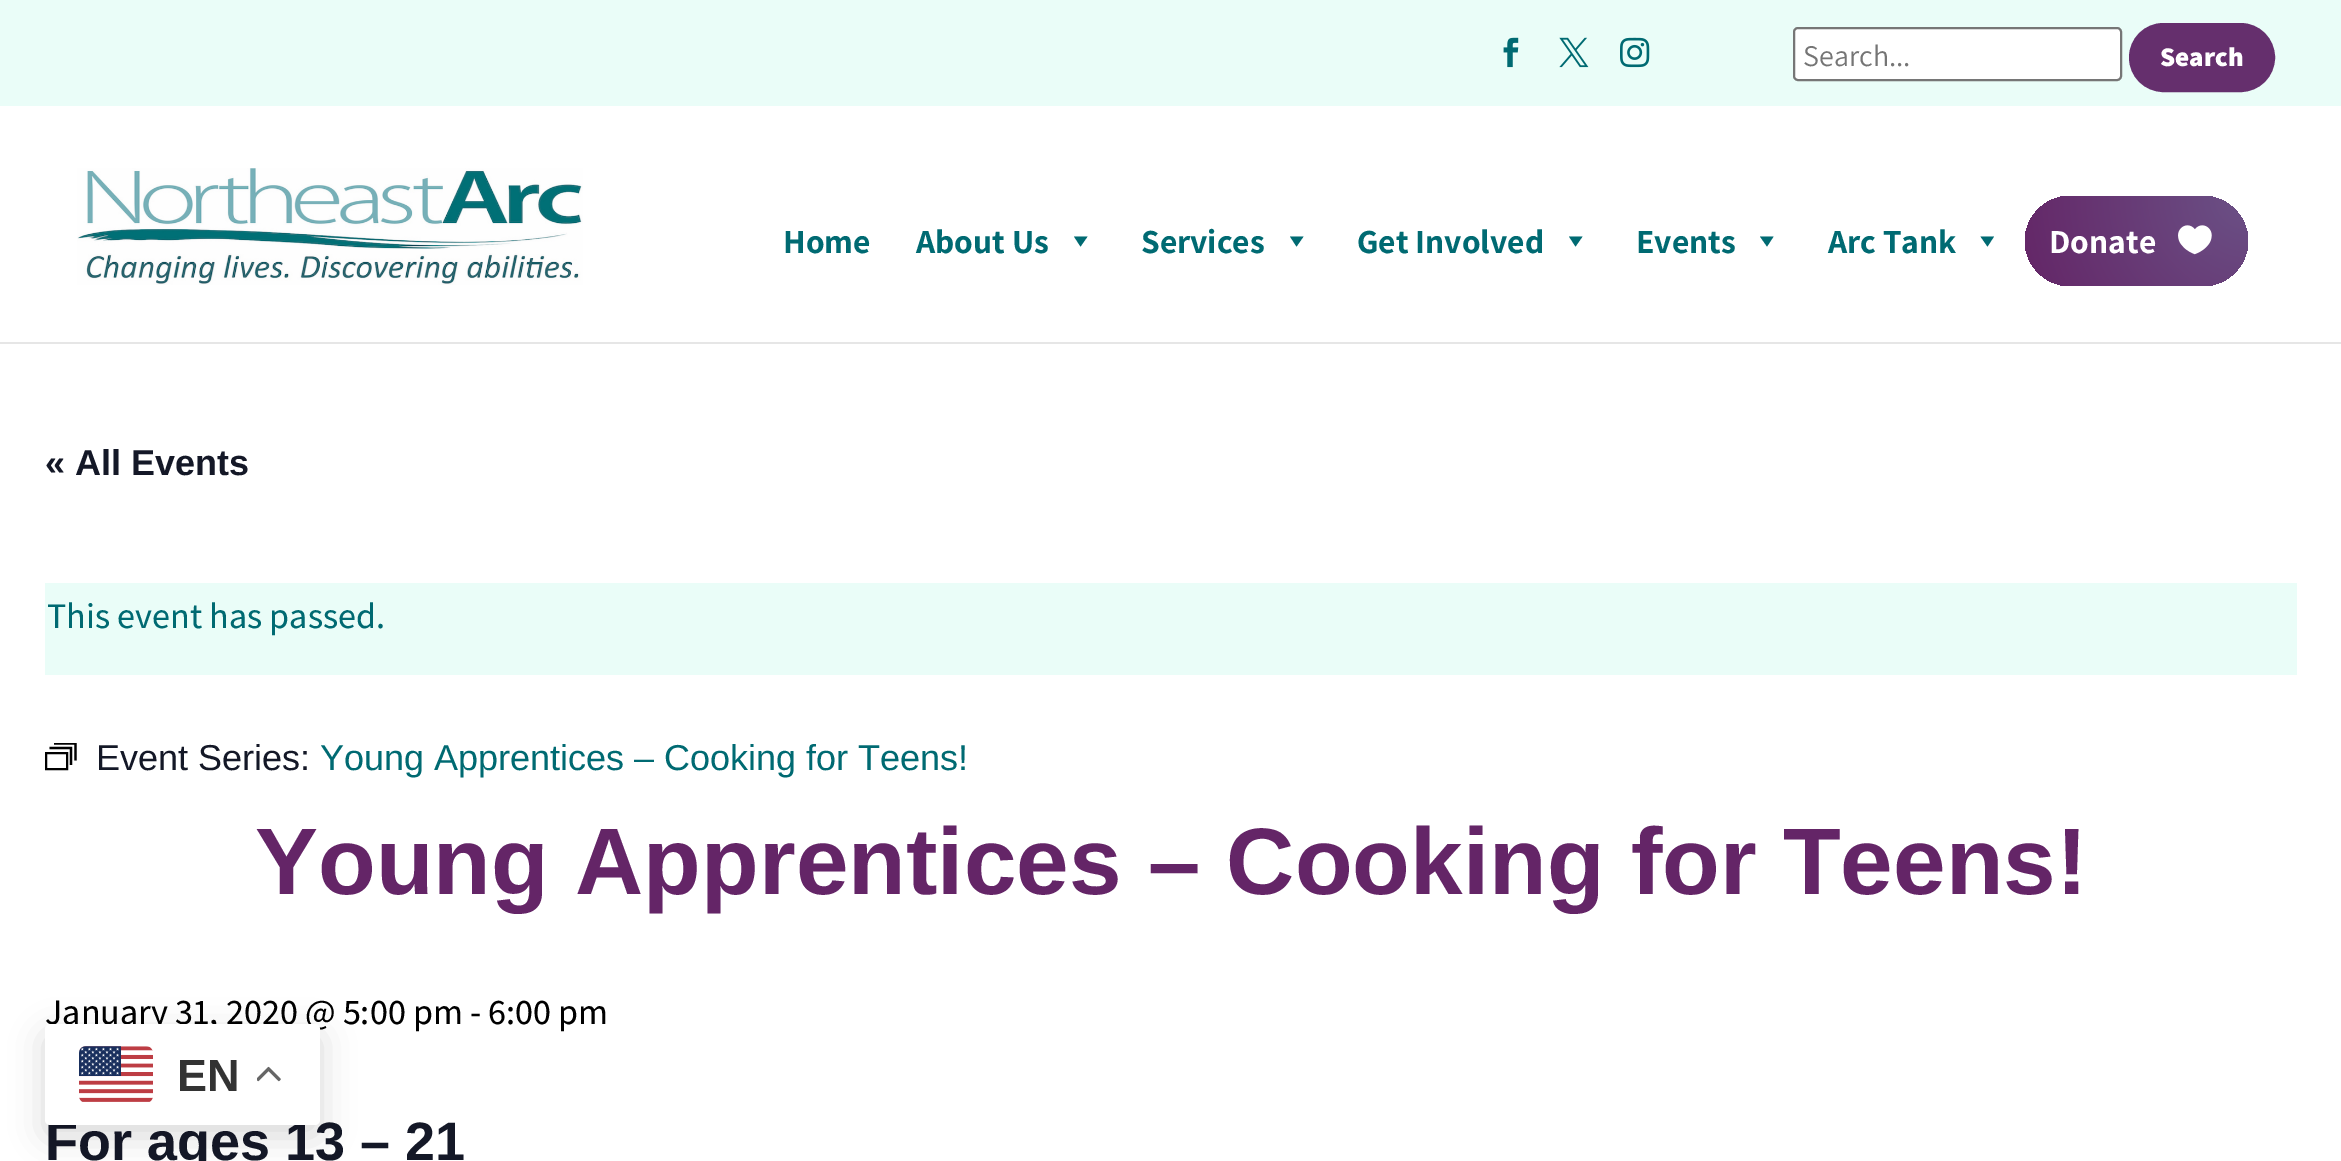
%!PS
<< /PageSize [2341 1161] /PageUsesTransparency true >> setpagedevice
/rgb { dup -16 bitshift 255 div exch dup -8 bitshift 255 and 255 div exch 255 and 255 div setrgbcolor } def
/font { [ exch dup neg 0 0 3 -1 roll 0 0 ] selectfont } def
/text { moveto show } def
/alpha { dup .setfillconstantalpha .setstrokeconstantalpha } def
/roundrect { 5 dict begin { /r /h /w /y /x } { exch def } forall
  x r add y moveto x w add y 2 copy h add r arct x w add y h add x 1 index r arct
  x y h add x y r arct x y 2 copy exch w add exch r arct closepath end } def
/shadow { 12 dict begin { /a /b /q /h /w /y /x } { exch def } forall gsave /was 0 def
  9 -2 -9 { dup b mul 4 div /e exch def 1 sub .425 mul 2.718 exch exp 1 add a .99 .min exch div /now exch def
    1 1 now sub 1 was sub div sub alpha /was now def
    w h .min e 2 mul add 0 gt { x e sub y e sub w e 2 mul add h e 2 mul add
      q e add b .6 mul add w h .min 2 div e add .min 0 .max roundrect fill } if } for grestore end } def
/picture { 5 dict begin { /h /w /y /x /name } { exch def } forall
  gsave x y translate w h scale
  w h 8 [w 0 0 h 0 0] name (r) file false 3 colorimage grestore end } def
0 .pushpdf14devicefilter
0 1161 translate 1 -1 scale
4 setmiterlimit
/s1 { /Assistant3-ExtraLight 30 font 16#757575 rgb } def
/s2 { /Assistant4-ExtraLight 27 font 16#FFFFFF rgb } def
/s3 { /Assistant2-ExtraLight 33.75 font 16#006A72 rgb } def
/s4 { /Assistant2-ExtraLight 33.75 font 16#FFFFFF rgb } def
/s5 { /LiberationSans-Bold 36 font 16#141827 rgb } def
/s6 { /Assistant-ExtraLight 36 font 16#006A72 rgb } def
/s7 { /LiberationSans-Regular 36 font 16#141827 rgb } def
/s8 { /LiberationSans-Regular 36 font 16#006A72 rgb } def
/s9 { /LiberationSans-Bold 94.5 font 16#642567 rgb } def
/s10 { /Assistant-ExtraLight 36 font 16#000000 rgb } def
/s11 { /LiberationSans-Bold 54 font 16#141827 rgb } def
/s12 { /LiberationSans-Bold 45 font 16#333333 rgb } def
16#FFFFFF rgb
0 0 2341 1161 rectfill
16#EAFDF8 rgb
0 0 2341 106 rectfill
(pic1.raw) 1503 37 16 31 picture
(pic2.raw) 1559 37 30 31 picture
(pic3.raw) 1620 37 30 31 picture
16#FFFFFF rgb
1794 28 327 52 4 roundrect gsave fill grestore
16#767676 rgb
2 setlinewidth
stroke
s1
(Search...) 1803 66 text
16#652F6D rgb
2131.5 25.5 141 64 32 roundrect gsave fill grestore
5 setlinewidth
stroke
s2
(Search) 2160 66 text
16#E6E6E6 rgb
0 342 2341 2 rectfill
(pic4.raw) 77 168 506 117 picture
s3
(Home) 783 253 text
(About Us) 916 253 text
1087.5 236.5 moveto 1080.5 246.5 lineto 1074 236.5 lineto closepath fill
(Services) 1141 253 text
1303.5 236.5 moveto 1296.5 246.5 lineto 1290 236.5 lineto closepath fill
(Get Involved) 1357 253 text
1582.5 236.5 moveto 1575.5 246.5 lineto 1569 236.5 lineto closepath fill
(Events) 1636 253 text
1773.5 236.5 moveto 1767 246.5 lineto 1760 236.5 lineto closepath fill
(Arc Tank) 1828 253 text
1994 236.5 moveto 1987.5 246.5 lineto 1980.5 236.5 lineto closepath fill
gsave 2025 196 223 90 45 roundrect clip newpath 2248 196 translate 240 240 scale
<< /ShadingType 3 /ColorSpace /DeviceRGB /Coords [0 0 0 0 0 1] /Extend [true true] /Function << /FunctionType 2 /Domain [0 1] /C0 [0.42 0.318 0.525] /C1 [0.392 0.149 0.404] /N 1 >> >> shfill grestore
s4
(Donate) 2049 253 text
(pic5.raw) 2178 225 34 30 picture
s5
(« All Events) 45 475 text
16#EAFDF8 rgb
45 583 2252 92 rectfill
s6
(This event has passed.) 47 628 text
16#000000 rgb
2 setlinewidth
46 753 21 16 rectstroke
2.2 setlinewidth
49.5 748 moveto 71 748 lineto 71 765 lineto stroke
gsave
45 743 32 27 rectclip
54 743.5 moveto 75.5 743.5 lineto 75.5 760.5 lineto stroke
grestore
s7
(Event Series:) 96 770 text
s8
(Young Apprentices – Cooking for Teens!) 320 770 text
s9
(Young Apprentices – Cooking for Teens!) 255 894 text
s10
(January 31, 2020 @ 5:00 pm - 6:00 pm) 45 1024 text
s11
(For ages 13 – 21) 45 1160 text
16#000000 rgb
45 1035 275 101 5 17 0.15 shadow
16#FFFFFF rgb
45 1024 275 101 5 roundrect fill
(pic6.raw) 79 1046 74 56 picture
s12
(EN) 177 1091 text
(pic7.raw) 257 1066 24 16 picture
.poppdf14devicefilter showpage
